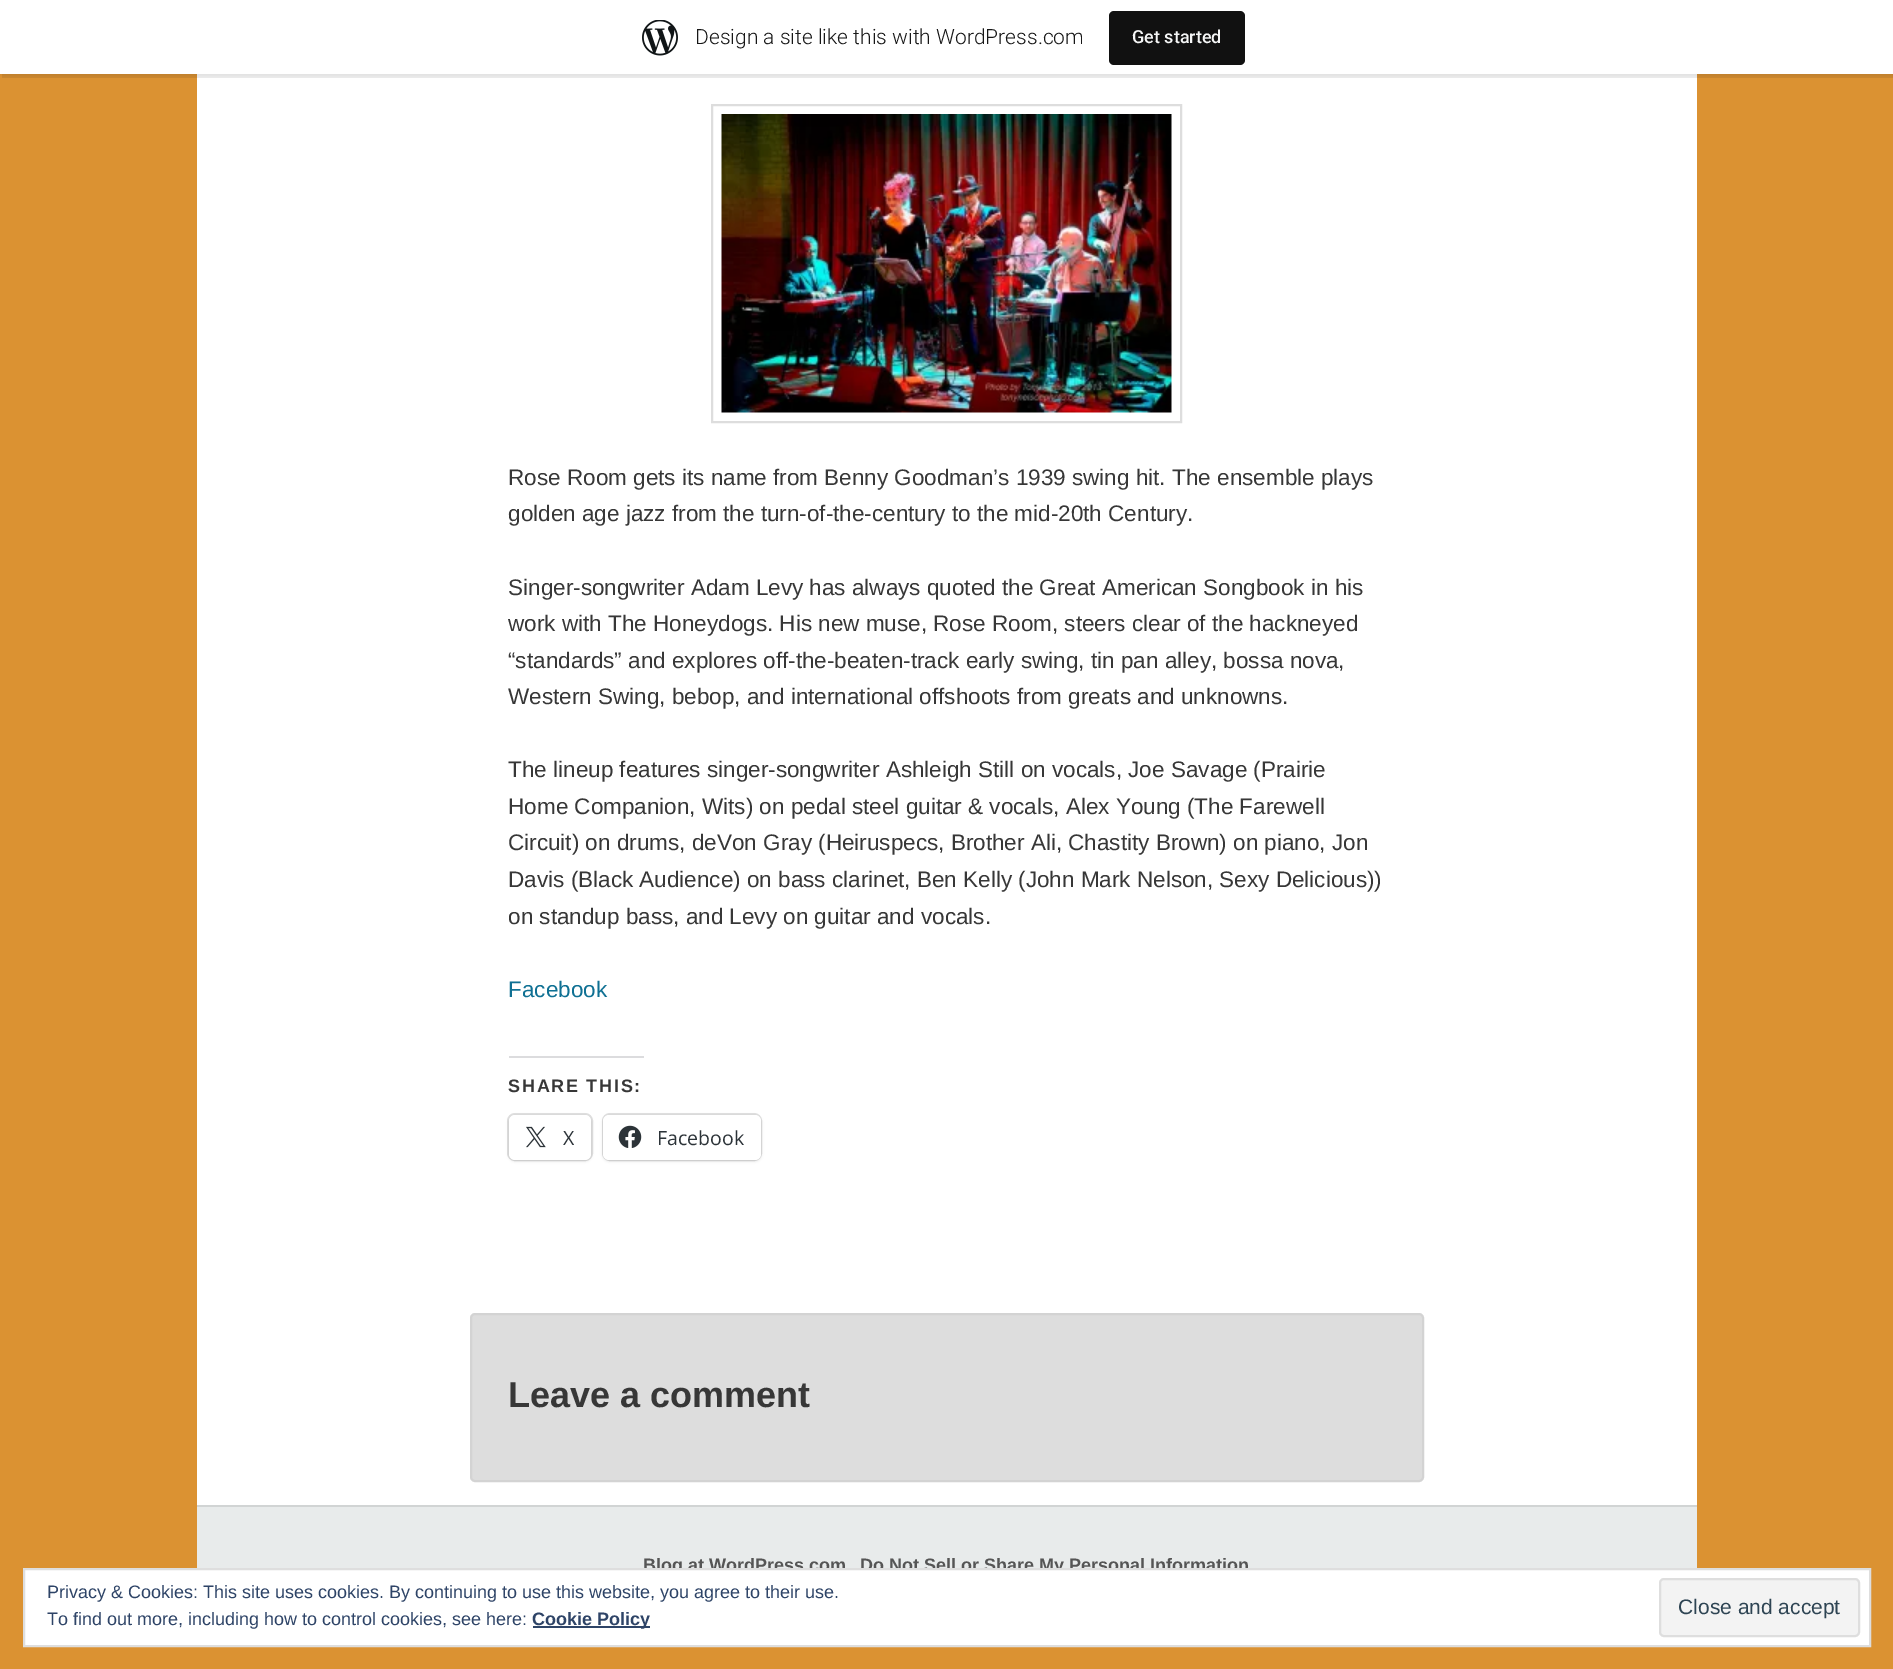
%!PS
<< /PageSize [1893 1669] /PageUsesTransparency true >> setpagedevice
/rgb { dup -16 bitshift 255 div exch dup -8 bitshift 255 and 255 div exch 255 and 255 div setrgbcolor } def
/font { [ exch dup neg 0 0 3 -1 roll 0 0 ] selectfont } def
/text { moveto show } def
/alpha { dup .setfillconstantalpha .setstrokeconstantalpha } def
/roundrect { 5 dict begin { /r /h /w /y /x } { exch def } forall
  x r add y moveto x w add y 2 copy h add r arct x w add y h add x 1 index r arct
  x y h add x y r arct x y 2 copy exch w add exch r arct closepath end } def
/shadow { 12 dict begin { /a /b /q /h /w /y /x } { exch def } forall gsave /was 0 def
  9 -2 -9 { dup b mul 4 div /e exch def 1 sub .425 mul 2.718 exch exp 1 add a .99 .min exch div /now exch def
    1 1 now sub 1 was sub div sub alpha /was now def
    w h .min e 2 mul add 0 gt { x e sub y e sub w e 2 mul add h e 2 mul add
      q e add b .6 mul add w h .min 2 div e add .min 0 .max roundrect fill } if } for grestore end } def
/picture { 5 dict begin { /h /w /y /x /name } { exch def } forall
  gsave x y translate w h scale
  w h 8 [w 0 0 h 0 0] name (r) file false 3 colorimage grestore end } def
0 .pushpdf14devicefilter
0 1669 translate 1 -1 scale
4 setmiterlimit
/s1 { /Roboto-Light 21 font 16#171717 rgb } def
/s2 { /Roboto-Medium 18 font 16#F6F7F7 rgb } def
/s3 { /LiberationSans-Regular 22.5 font 16#373737 rgb } def
/s4 { /LiberationSans-Regular 22.5 font 16#0F7093 rgb } def
/s5 { /OpenSans-Regular 19.5 font 16#2C3338 rgb } def
/s6 { /LiberationSans-Bold 36 font 16#373737 rgb } def
/s7 { /LiberationSans-Bold 18 font 16#555555 rgb } def
/s8 { /LiberationSans-Regular 18 font 16#2E4467 rgb } def
/s9 { /LiberationSans-Bold 18 font 16#2E4467 rgb } def
/s10 { /LiberationSans-Regular 21 font 16#2E4453 rgb } def
16#DB9232 rgb
0 0 1893 1669 rectfill
16#FFFFFF rgb
197 74 1500 1431 rectfill
16#000000 rgb
0 2 1893 73 0 1.5 0.05 shadow
0.08 alpha
2 74 moveto 2 78 lineto 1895 78 lineto 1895 5 lineto 1893 5 lineto 1893 74 lineto closepath fill
1 alpha
16#FFFFFF rgb
0 0 1893 74 rectfill
(pic1.raw) 642 20 36 36 picture
s1
(Design a site like this with WordPress.com) 695 44 text
16#111111 rgb
1109 11 136 54 5 roundrect fill
s2
(Get started) 1132 43 text
16#DDDDDD rgb
2 setlinewidth
712 105 469 317 rectstroke
(pic2.raw) 721 114 451 299 picture
s3
(Rose Room gets its name from Benny Goodman’s 1939 swing hit. The ensemble plays) 508 485 text
(golden age jazz from the turn-of-the-century to the mid-20th Century.) 508 521 text
(Singer-songwriter Adam Levy has always quoted the Great American Songbook in his) 508 595 text
(work with The Honeydogs. His new muse, Rose Room, steers clear of the hackneyed) 508 631 text
(“standards” and explores off-the-beaten-track early swing, tin pan alley, bossa nova,) 508 668 text
(Western Swing, bebop, and international offshoots from greats and unknowns.) 508 704 text
(The lineup features singer-songwriter Ashleigh Still on vocals, Joe Savage \(Prairie) 508 777 text
(Home Companion, Wits\) on pedal steel guitar & vocals, Alex Young \(The Farewell) 508 814 text
(Circuit\) on drums, deVon Gray \(Heiruspecs, Brother Ali, Chastity Brown\) on piano, Jon) 508 850 text
(Davis \(Black Audience\) on bass clarinet, Ben Kelly \(John Mark Nelson, Sexy Delicious\)\)) 508 887 text
(on standup bass, and Levy on guitar and vocals.) 508 924 text
s4
(Facebook) 508 997 text
16#DCDCDE rgb
509 1056 135 2 rectfill
/LiberationSans-Bold 18 font
16#373737 rgb
508 1092 moveto 1.75 0 (SHARE THIS:) ashow
16#E0E0E0 rgb
508 1114 84 46 7 roundrect stroke
16#000000 rgb
509 1116 82 45 6 1.5 0.12 shadow
16#FFFFFF rgb
509 1115 82 45 6 roundrect fill
(pic3.raw) 526 1126 20 22 picture
s5
(X) 563 1145 text
16#E0E0E0 rgb
603 1114 158 46 7 roundrect stroke
16#000000 rgb
603 1116 158 45 6 1.5 0.12 shadow
16#FFFFFF rgb
603 1115 158 45 6 roundrect fill
(pic4.raw) 618 1125 24 23 picture
s5
(Facebook) 657 1145 text
16#DDDDDD rgb
471 1314 952 167 4 roundrect gsave fill grestore
16#D3D3D3 rgb
stroke
s6
(Leave a comment) 508 1407 text
16#E8EBEB rgb
197 1507 1500 61 rectfill
16#D1D4D4 rgb
197 1505 1500 2 rectfill
s7
(Blog at WordPress.com) 643 1571 text
(Do Not Sell or Share My Personal Information) 860 1571 text
16#FFFFFF rgb
24 1569 moveto 1870 1569 lineto 1870 1646 lineto 24 1646 lineto closepath gsave fill grestore
16#DEDEDE rgb
stroke
s8
(Privacy & Cookies: This site uses cookies. By continuing to use this website, you agree to their use.) 47 1598 text
(To find out more, including how to control cookies, see here:) 47 1625 text
533 1626 117 2 rectfill
s9
(Cookie Policy) 532 1625 text
16#F3F3F3 rgb
1660 1579 199 57 4 roundrect gsave fill grestore
16#DEDEDE rgb
stroke
s10
(Close and accept) 1678 1614 text
.poppdf14devicefilter showpage
